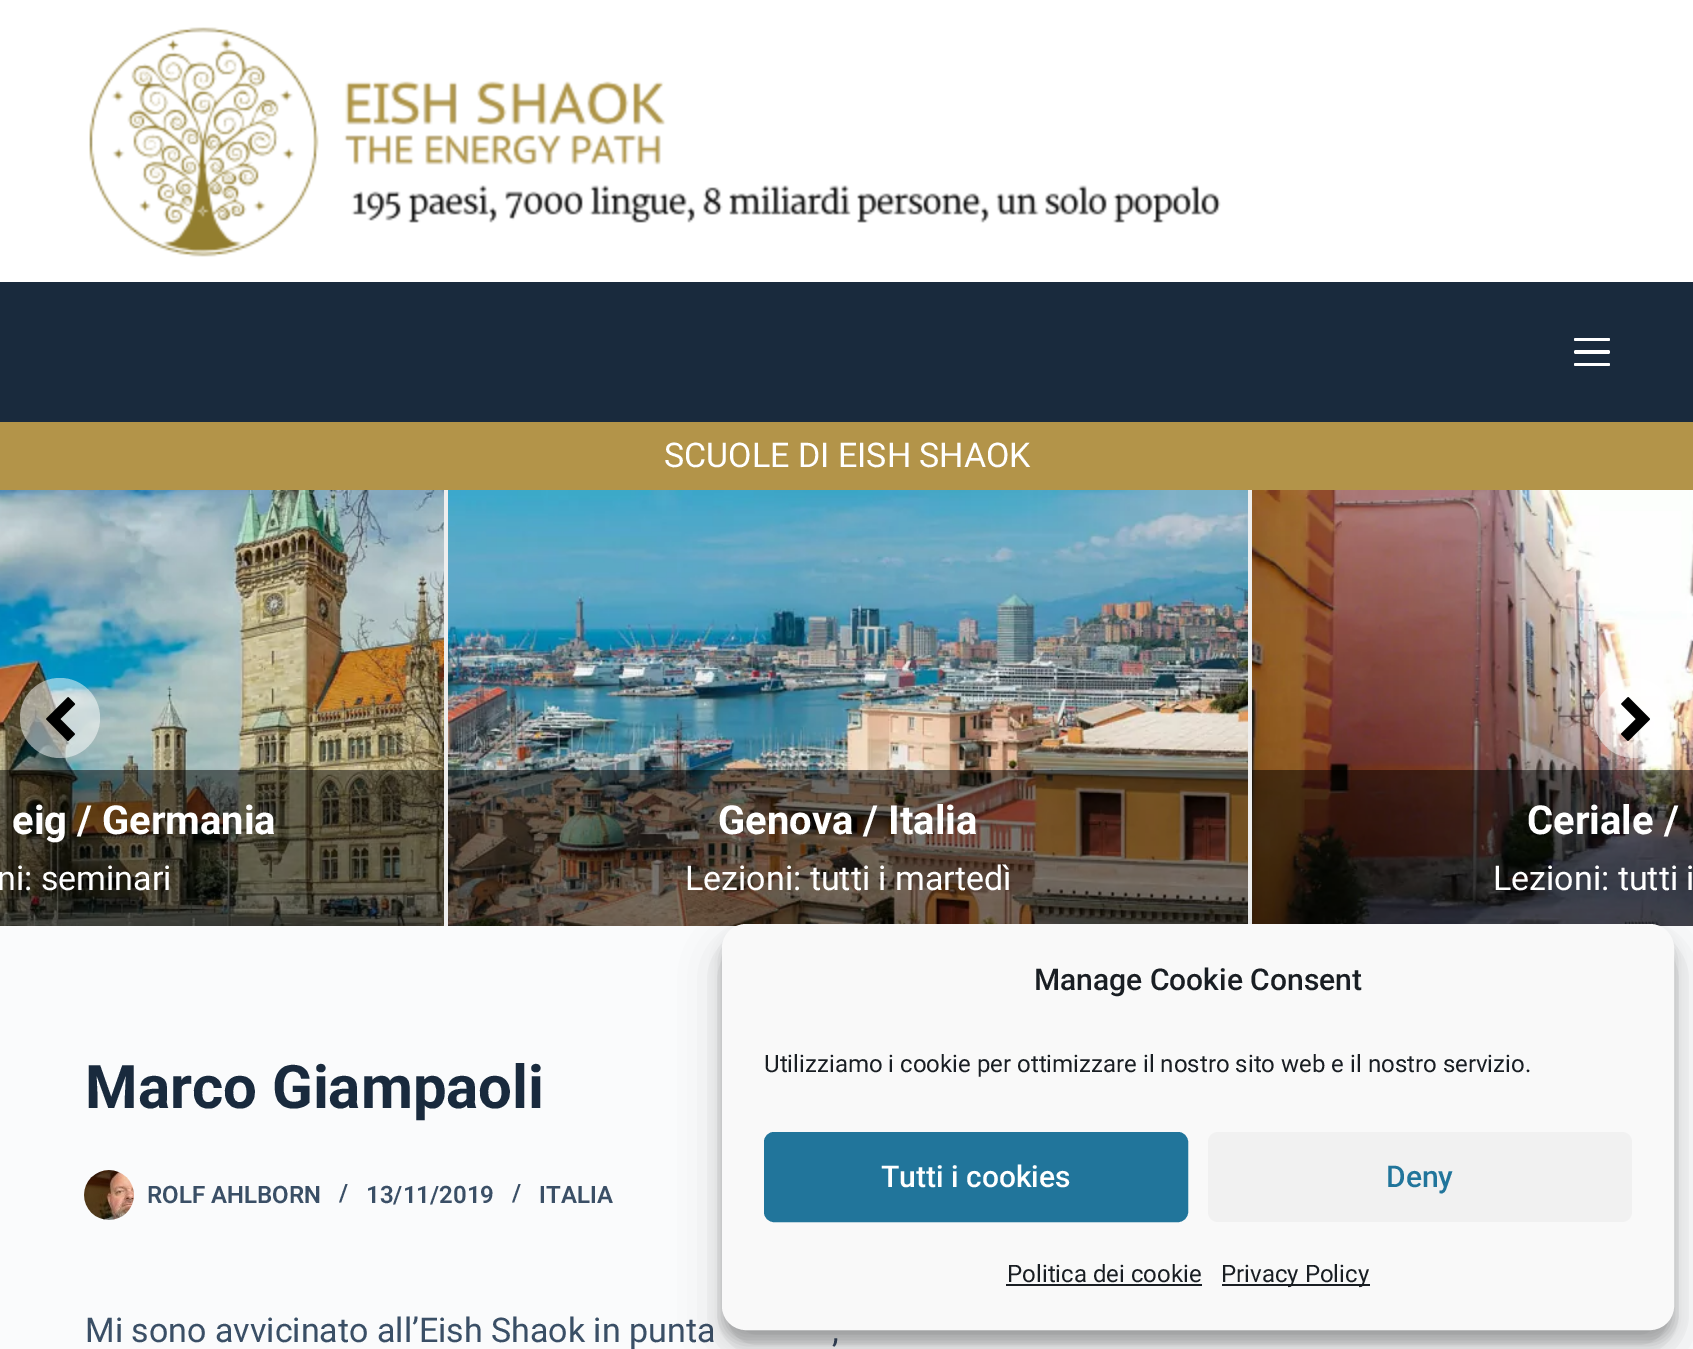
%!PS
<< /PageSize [1693 1349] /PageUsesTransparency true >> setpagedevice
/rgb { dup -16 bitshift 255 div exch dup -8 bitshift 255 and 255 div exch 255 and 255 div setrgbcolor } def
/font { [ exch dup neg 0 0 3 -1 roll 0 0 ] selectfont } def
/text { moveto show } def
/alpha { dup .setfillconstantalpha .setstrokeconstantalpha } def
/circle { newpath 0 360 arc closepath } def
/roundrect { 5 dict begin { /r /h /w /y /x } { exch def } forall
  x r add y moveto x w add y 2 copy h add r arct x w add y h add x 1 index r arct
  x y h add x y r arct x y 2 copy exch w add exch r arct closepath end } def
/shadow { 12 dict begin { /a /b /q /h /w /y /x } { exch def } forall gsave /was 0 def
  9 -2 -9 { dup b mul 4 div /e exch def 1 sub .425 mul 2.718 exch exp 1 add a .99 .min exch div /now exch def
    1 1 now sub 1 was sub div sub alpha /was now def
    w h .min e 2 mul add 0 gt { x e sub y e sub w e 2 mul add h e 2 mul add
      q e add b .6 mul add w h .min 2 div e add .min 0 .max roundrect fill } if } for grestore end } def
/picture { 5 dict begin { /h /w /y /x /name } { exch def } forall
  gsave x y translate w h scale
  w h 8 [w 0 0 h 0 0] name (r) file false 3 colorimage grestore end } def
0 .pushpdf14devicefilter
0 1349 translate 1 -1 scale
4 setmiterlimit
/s1 { /Roboto-Regular 34 font 16#FFFFFF rgb } def
/s2 { /Roboto-Bold 40 font 16#FFFFFF rgb } def
/s3 { /Roboto-Bold 60 font 16#192A3D rgb } def
/s4 { /Roboto-SemiBold 24 font 16#3A4F66 rgb } def
/s5 { /Roboto-Regular 34 font 16#3A4F66 rgb } def
/s6 { /Roboto-Medium 30 font 16#191E23 rgb } def
/s7 { /Roboto-Regular 24 font 16#191E23 rgb } def
/s8 { /Roboto-Medium 30 font 16#FFFFFF rgb } def
/s9 { /Roboto-Medium 30 font 16#21759B rgb } def
16#FAFBFC rgb
0 0 1693 1349 rectfill
16#FFFFFF rgb
0 0 1693 282 rectfill
(pic1.raw) 89 27 1132 230 picture
16#192A3D rgb
0 282 1693 140 rectfill
16#FFFFFF rgb
1574 338 36 3 1.5 roundrect fill
1574 350 36 4 2 roundrect fill
1574 363 36 3 1.5 roundrect fill
16#B39449 rgb
0 422 1693 68 rectfill
s1
(SCUOLE DI EISH SHAOK) 664 467 text
16#EEEEEE rgb
444 490 808 436 rectfill
(pic4.raw) 0 490 444 436 picture
0.5 alpha
16#FFFFFF rgb
60 718 40 circle fill
1 alpha
(pic2.raw) 46 697 30 44 picture
(pic6.raw) 1252 490 441 436 picture
0.5 alpha
1634 718 40 circle fill
1 alpha
(pic3.raw) 1621 697 29 44 picture
0.5 alpha
16#000000 rgb
0 770 444 156 rectfill
1 alpha
s2
(eig / Germania) 12 834 text
s1
(ni: seminari) -3 890 text
(pic5.raw) 448 490 800 436 picture
0.5 alpha
16#000000 rgb
448 770 800 156 rectfill
1 alpha
s2
(Genova / Italia) 718 834 text
s1
(Lezioni: tutti i martedì) 685 890 text
0.5 alpha
16#000000 rgb
1252 770 441 156 rectfill
1 alpha
s2
(Ceriale /) 1527 834 text
s1
(Lezioni: tutti i) 1493 890 text
s3
(Marco Giampaoli) 85 1108 text
(pic7.raw) 84 1170 50 50 picture
s4
(ROLF AHLBORN) 147 1203 text
(/) 339 1201 text
(13/11/2019) 366 1203 text
(/) 512 1201 text
(ITALIA) 539 1203 text
s5
(Mi sono avvicinato all’Eish Shaok in punta) 85 1342 text
(,) 832 1342 text
16#000000 rgb
722 936 952 406 24 6 0.23 shadow
722 944 952 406 24 20 0.19 shadow
16#F9F9F9 rgb
723 925 950 404 23 roundrect gsave fill grestore
2 setlinewidth
stroke
s6
(Manage Cookie Consent) 1034 990 text
s7
(Utilizziamo i cookie per ottimizzare il nostro sito web e il nostro servizio.) 764 1072 text
16#21759B rgb
765 1133 422 88 9 roundrect gsave fill grestore
stroke
s8
(Tutti i cookies) 881 1187 text
16#F1F1F1 rgb
1208 1132 424 90 10 roundrect fill
s9
(Deny) 1386 1187 text
s7
(Politica dei cookie) 1007 1282 text
1006 1284 196 2 rectfill
1222 1284 148 2 rectfill
(Privacy Policy) 1221 1282 text
.poppdf14devicefilter showpage
